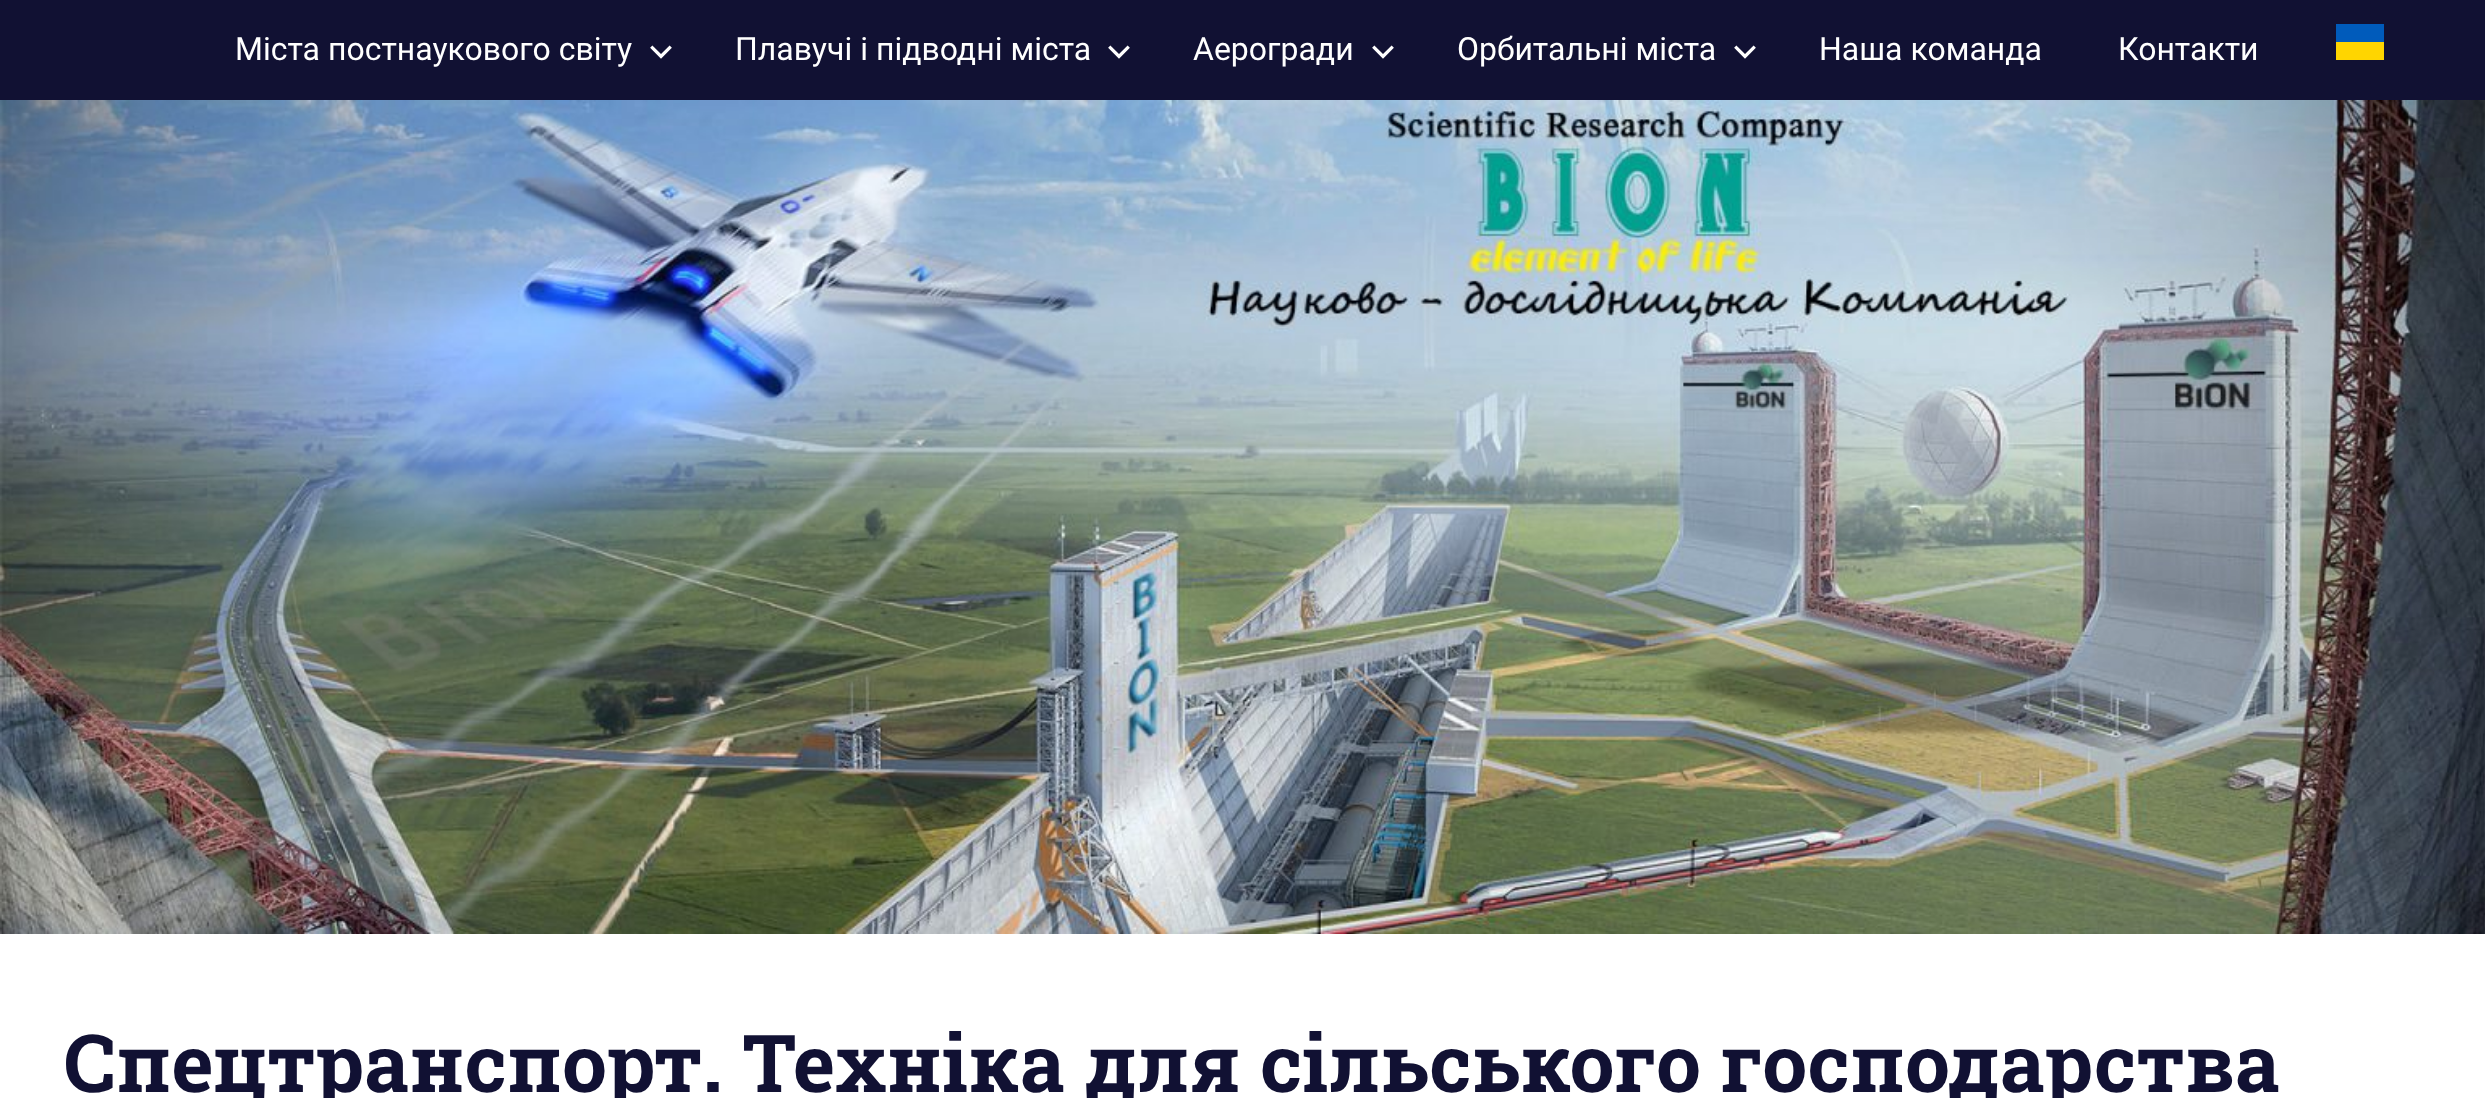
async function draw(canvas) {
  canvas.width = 2485
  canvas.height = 1098
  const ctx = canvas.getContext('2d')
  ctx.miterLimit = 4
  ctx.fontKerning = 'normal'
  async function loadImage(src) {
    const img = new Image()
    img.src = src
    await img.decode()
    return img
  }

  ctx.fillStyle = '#fff'
  ctx.fillRect(0, 0, 2485, 1098)
  ctx.fillStyle = '#113'
  ctx.fillRect(0, 0, 2485, 100)
  ctx.font = '32px Roboto'
  ctx.fillStyle = '#fff'
  ctx.fillText('Міста постнаукового світу', 235, 60)
  ctx.drawImage(await loadImage('image0.png'), 650, 45, 22, 14)
  ctx.fillText('Плавучі і підводні міста', 735, 60)
  ctx.drawImage(await loadImage('image0.png'), 1108, 45, 22, 14)
  ctx.fillText('Аерогради', 1193, 60)
  ctx.drawImage(await loadImage('image0.png'), 1372, 45, 22, 14)
  ctx.fillText('Орбитальні міста', 1457, 60)
  ctx.drawImage(await loadImage('image0.png'), 1734, 45, 22, 14)
  ctx.fillText('Наша команда', 1819, 60)
  ctx.fillText('Контакти', 2118, 60)
  ctx.fillStyle = '#005bbb'
  ctx.fillRect(2336, 24, 48, 18)
  ctx.fillStyle = '#ffd500'
  ctx.fillRect(2336, 42, 48, 18)
  ctx.drawImage(await loadImage('image1.png'), 0, 100, 2485, 834)
  ctx.font = 'bold 80px Roboto Slab'
  ctx.fillStyle = '#113'
  ctx.fillText('Спецтранспорт. Техніка для сільського господарства', 64, 1092)
}

draw(document.querySelector('canvas'))
